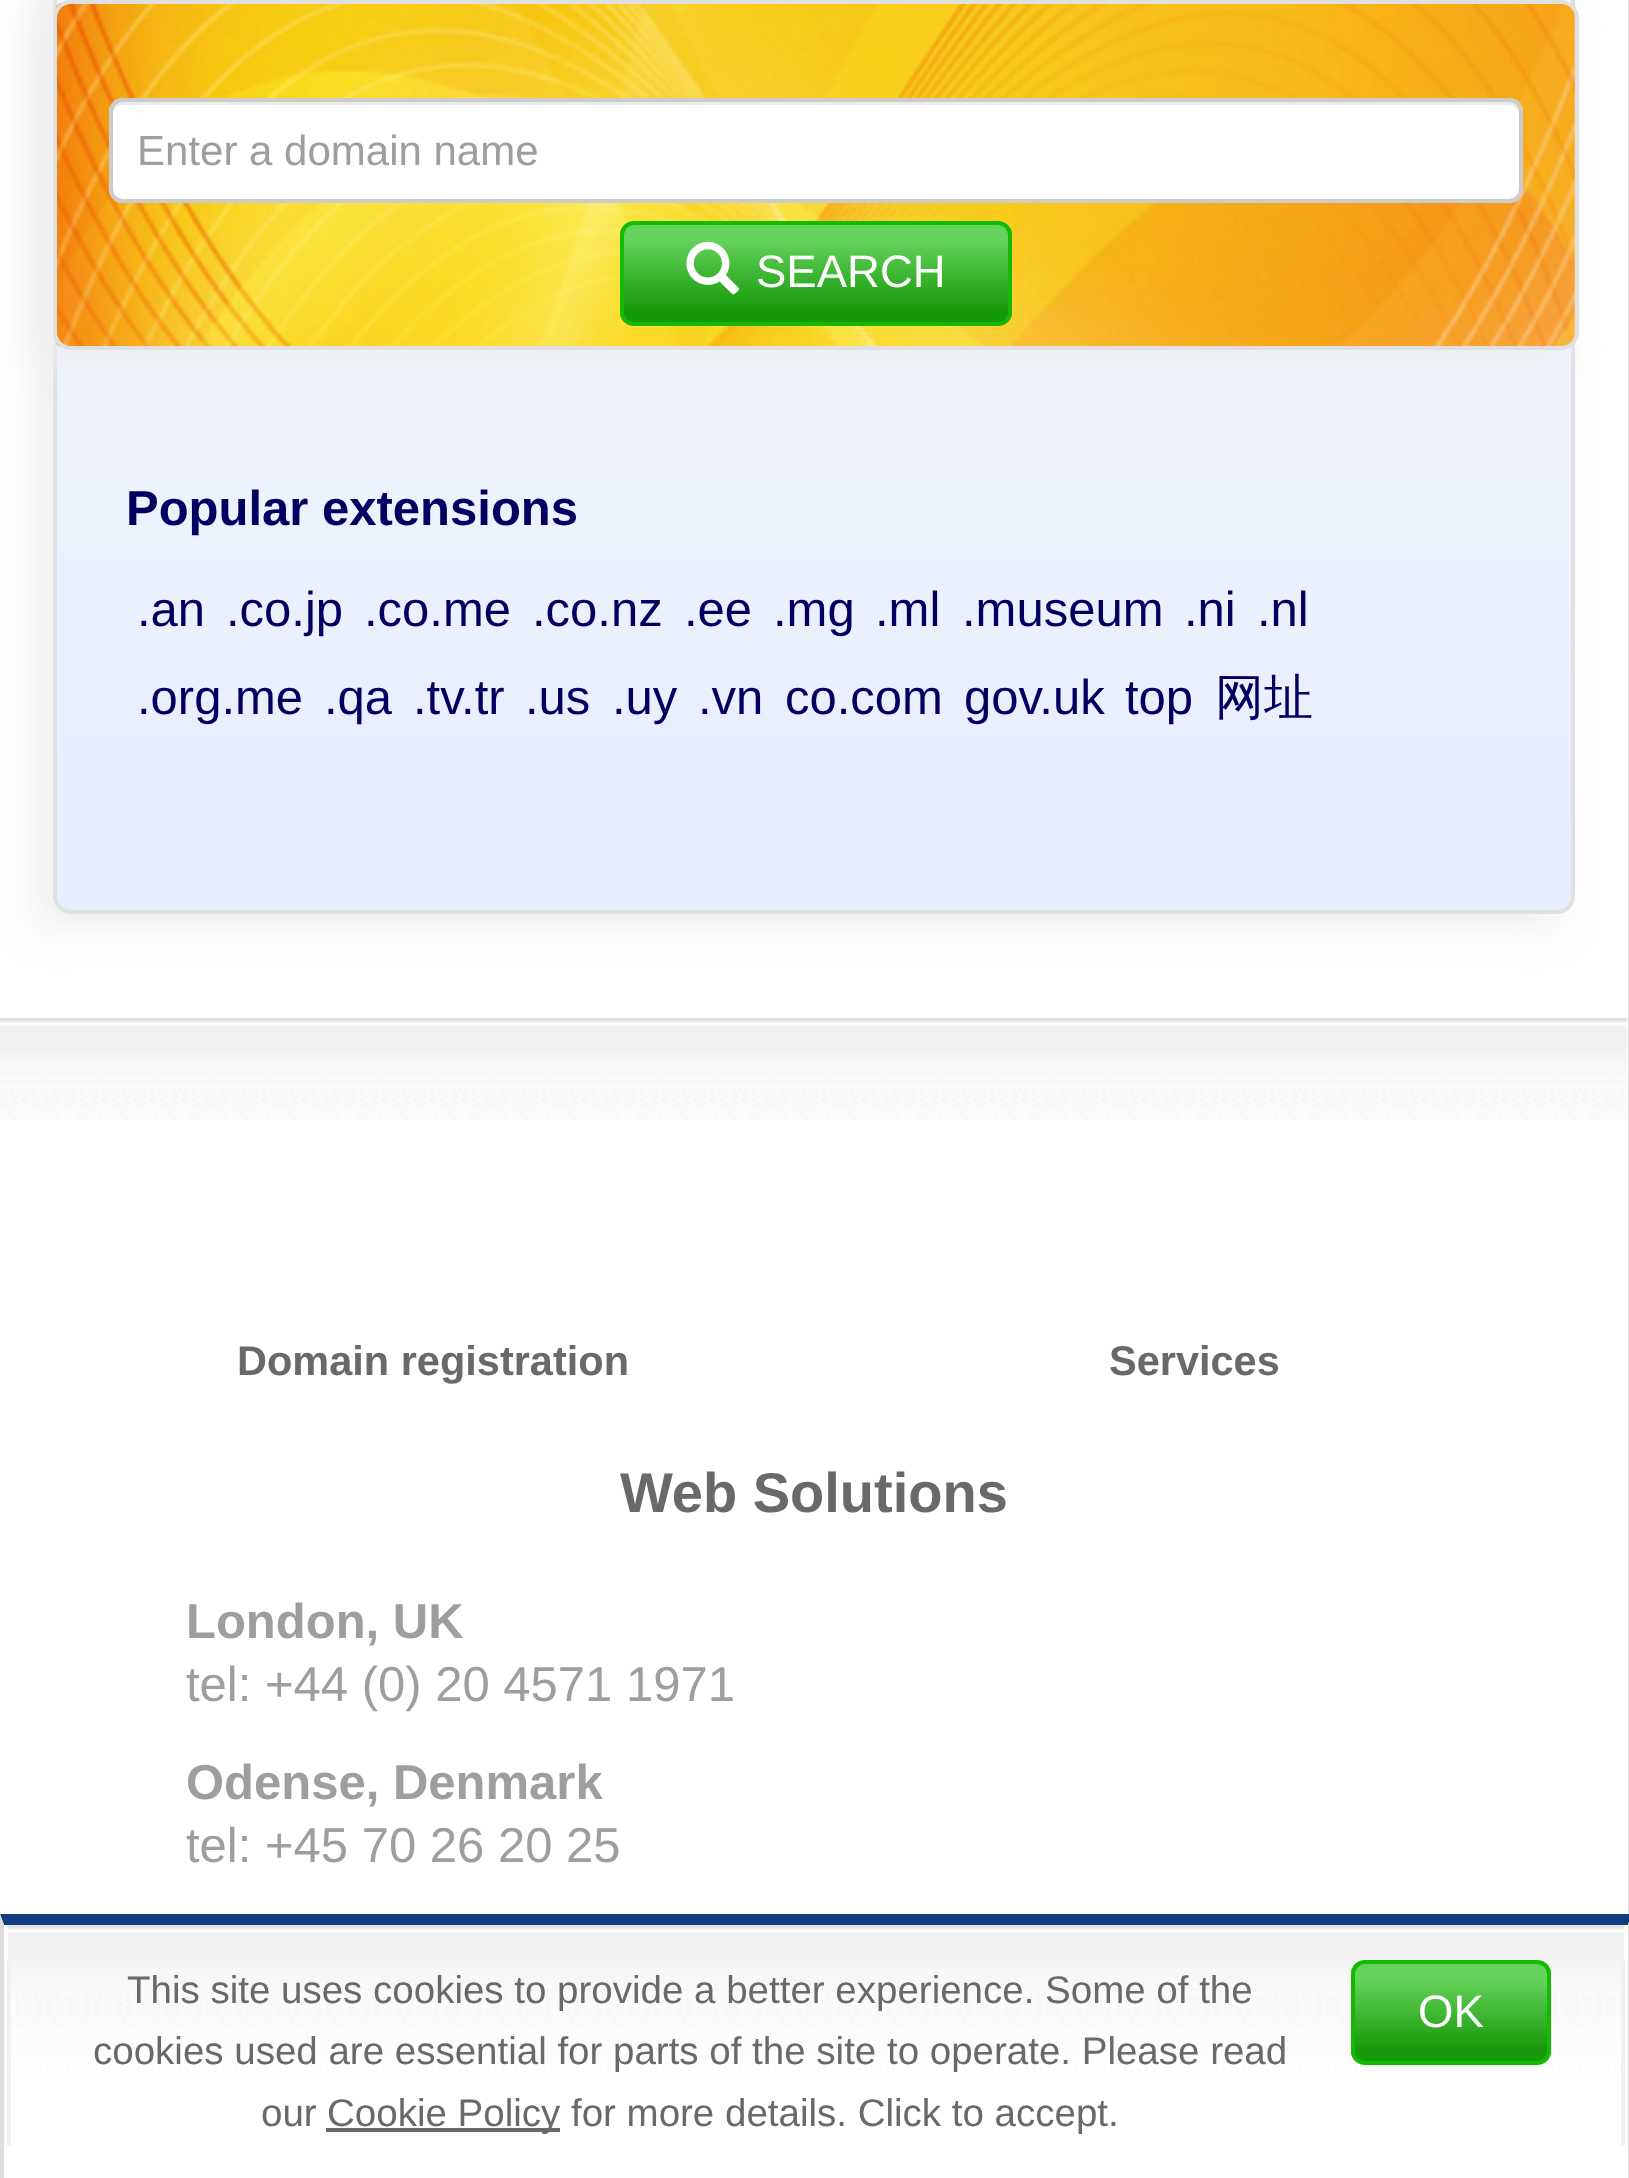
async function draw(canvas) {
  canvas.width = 1629
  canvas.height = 2178
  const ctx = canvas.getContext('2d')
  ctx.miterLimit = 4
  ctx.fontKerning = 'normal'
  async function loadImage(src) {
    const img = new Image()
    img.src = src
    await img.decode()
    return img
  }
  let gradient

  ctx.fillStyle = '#fff'
  ctx.fillRect(0, 0, 1629, 2178)
  ctx.fillStyle = '#dedede'
  ctx.fillRect(1628, 0, 1, 1925)
  ctx.fillStyle = '#efefef'
  ctx.filter = 'blur(17.5px)'
  ctx.beginPath()
  ctx.roundRect(35, -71, 1523, 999, 18)
  ctx.fill()
  ctx.filter = 'none'
  ctx.save()
  ctx.beginPath()
  ctx.roundRect(53, -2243, 1522, 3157, 18)
  ctx.clip()
  gradient = ctx.createLinearGradient(814, -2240, 814, 910)
  gradient.addColorStop(0, '#e6edfe')
  gradient.addColorStop(0.5, '#fff')
  gradient.addColorStop(1, '#e6edfe')
  ctx.fillStyle = gradient
  ctx.fillRect(53, 0, 1522, 910)
  ctx.restore()
  ctx.beginPath()
  ctx.roundRect(55, -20, 1518, 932, 16)
  ctx.strokeStyle = '#e0e0e0'
  ctx.lineWidth = 4
  ctx.stroke()
  ctx.filter = 'blur(17.5px)'
  ctx.beginPath()
  ctx.roundRect(35, 14, 1526, 350, 18)
  ctx.fill()
  ctx.filter = 'none'
  ctx.drawImage(await loadImage('image0.png'), 55, 3, 1521, 344)
  ctx.beginPath()
  ctx.roundRect(55, 2, 1522, 346, 16)
  ctx.stroke()
  ctx.fillStyle = '#fff'
  ctx.beginPath()
  ctx.roundRect(109, 98, 1414, 105, 14)
  ctx.fill()
  ctx.fillStyle = '#ececec'
  ctx.beginPath()
  ctx.moveTo(122, 105)
  ctx.lineTo(1508, 105)
  ctx.bezierCurveTo(1514, 105, 1519, 110, 1519, 116)
  ctx.bezierCurveTo(1519, 109, 1516, 102, 1508, 102)
  ctx.lineTo(123, 102)
  ctx.bezierCurveTo(115, 102, 112, 109, 112, 116)
  ctx.bezierCurveTo(112, 110, 117, 105, 122, 105)
  ctx.closePath()
  ctx.fill()
  ctx.beginPath()
  ctx.roundRect(111, 100, 1410, 101, 12)
  ctx.strokeStyle = '#ccc'
  ctx.stroke()
  ctx.font = '42px Liberation Sans'
  ctx.fillStyle = '#9e9e9e'
  ctx.fillText('Enter a domain name', 137, 165)
  ctx.save()
  ctx.beginPath()
  ctx.roundRect(620, 221, 392, 105, 14)
  ctx.clip()
  gradient = ctx.createLinearGradient(623, 224, 623, 322)
  gradient.addColorStop(0.16, '#65d25b')
  gradient.addColorStop(0.89, '#159809')
  ctx.fillStyle = gradient
  ctx.fillRect(620, 224, 392, 98)
  ctx.restore()
  ctx.beginPath()
  ctx.roundRect(622, 223, 388, 101, 12)
  ctx.strokeStyle = '#13ba00'
  ctx.stroke()
  ctx.drawImage(await loadImage('image1.png'), 686, 241, 53, 54)
  ctx.font = '45.5px Liberation Sans'
  ctx.fillStyle = '#fff'
  ctx.fillText('SEARCH', 756, 287)
  ctx.font = 'bold 49px Liberation Sans'
  ctx.fillStyle = '#000060'
  ctx.fillText('Popular extensions', 126, 525)
  ctx.font = '49px Liberation Sans'
  ctx.fillText('.an', 137, 626)
  ctx.fillText('.co.jp', 226, 626)
  ctx.fillText('.co.me', 364, 626)
  ctx.fillText('.co.nz', 532, 626)
  ctx.fillText('.ee', 684, 626)
  ctx.fillText('.mg', 773, 626)
  ctx.fillText('.ml', 875, 626)
  ctx.fillText('.museum', 962, 626)
  ctx.fillText('.ni', 1184, 626)
  ctx.fillText('.nl', 1257, 626)
  ctx.fillText('.org.me', 137, 714)
  ctx.fillText('.qa', 324, 714)
  ctx.fillText('.tv.tr', 413, 714)
  ctx.fillText('.us', 525, 714)
  ctx.fillText('.uy', 612, 714)
  ctx.fillText('.vn', 698, 714)
  ctx.fillText('co.com', 785, 714)
  ctx.fillText('gov.uk', 964, 714)
  ctx.fillText('top', 1125, 714)
  ctx.font = '500 49px WenQuanYi Zen Hei'
  ctx.fillText('网址', 1215, 714)
  ctx.drawImage(await loadImage('image2.png'), 0, 1018, 1628, 102)
  ctx.font = 'bold 41.5px Liberation Sans'
  ctx.fillStyle = '#696969'
  ctx.fillText('Domain registration', 237, 1375)
  ctx.fillText('Services', 1109, 1375)
  ctx.font = 'bold 56px Liberation Sans'
  ctx.fillText('Web Solutions', 620, 1512)
  ctx.font = 'bold 49px Liberation Sans'
  ctx.fillStyle = '#9e9e9e'
  ctx.fillText('London, UK', 186, 1638)
  ctx.font = '49px Liberation Sans'
  ctx.fillText('tel: +44 (0) 20 4571 1971', 186, 1701)
  ctx.font = 'bold 49px Liberation Sans'
  ctx.fillText('Odense, Denmark', 186, 1799)
  ctx.font = '49px Liberation Sans'
  ctx.fillText('tel: +45 70 26 20 25', 186, 1862)
  ctx.drawImage(await loadImage('image3.png'), 3, 1924, 1626, 254)
  ctx.fillStyle = '#113d80'
  ctx.beginPath()
  ctx.moveTo(0, 1914)
  ctx.lineTo(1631, 1914)
  ctx.lineTo(1628, 1925)
  ctx.lineTo(4, 1925)
  ctx.closePath()
  ctx.fill()
  ctx.fillStyle = '#dedede'
  ctx.beginPath()
  ctx.moveTo(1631, 1914)
  ctx.lineTo(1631, 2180)
  ctx.lineTo(1628, 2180)
  ctx.lineTo(1628, 1925)
  ctx.closePath()
  ctx.fill()
  ctx.beginPath()
  ctx.moveTo(0, 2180)
  ctx.lineTo(0, 1914)
  ctx.lineTo(4, 1925)
  ctx.lineTo(4, 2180)
  ctx.closePath()
  ctx.fill()
  ctx.fillStyle = '#fff'
  ctx.fillRect(1624, 1925, 4, 132)
  ctx.fillRect(4, 1925, 4, 146)
  ctx.fillStyle = '#f1f1f1'
  ctx.fillRect(1621, 1960, 4, 186)
  ctx.fillRect(7, 1960, 4, 186)
  ctx.font = '38.5px Liberation Sans'
  ctx.fillStyle = '#696969'
  ctx.fillText('This site uses cookies to provide a better experience. Some of the', 127, 2003)
  ctx.fillText('cookies used are essential for parts of the site to operate. Please read', 93, 2064)
  ctx.fillText('our', 261, 2126)
  ctx.fillRect(326, 2128, 234, 4)
  ctx.fillText('Cookie Policy for more details. Click to accept.', 327, 2126)
  ctx.save()
  ctx.beginPath()
  ctx.roundRect(1351, 1960, 200, 105, 14)
  ctx.clip()
  gradient = ctx.createLinearGradient(1355, 1964, 1355, 2062)
  gradient.addColorStop(0.16, '#65d25b')
  gradient.addColorStop(0.89, '#159809')
  ctx.fillStyle = gradient
  ctx.fillRect(1351, 1964, 200, 98)
  ctx.restore()
  ctx.beginPath()
  ctx.roundRect(1353, 1962, 196, 101, 12)
  ctx.stroke()
  ctx.font = '45.5px Liberation Sans'
  ctx.fillStyle = '#fff'
  ctx.fillText('OK', 1418, 2027)
}

draw(document.querySelector('canvas'))
